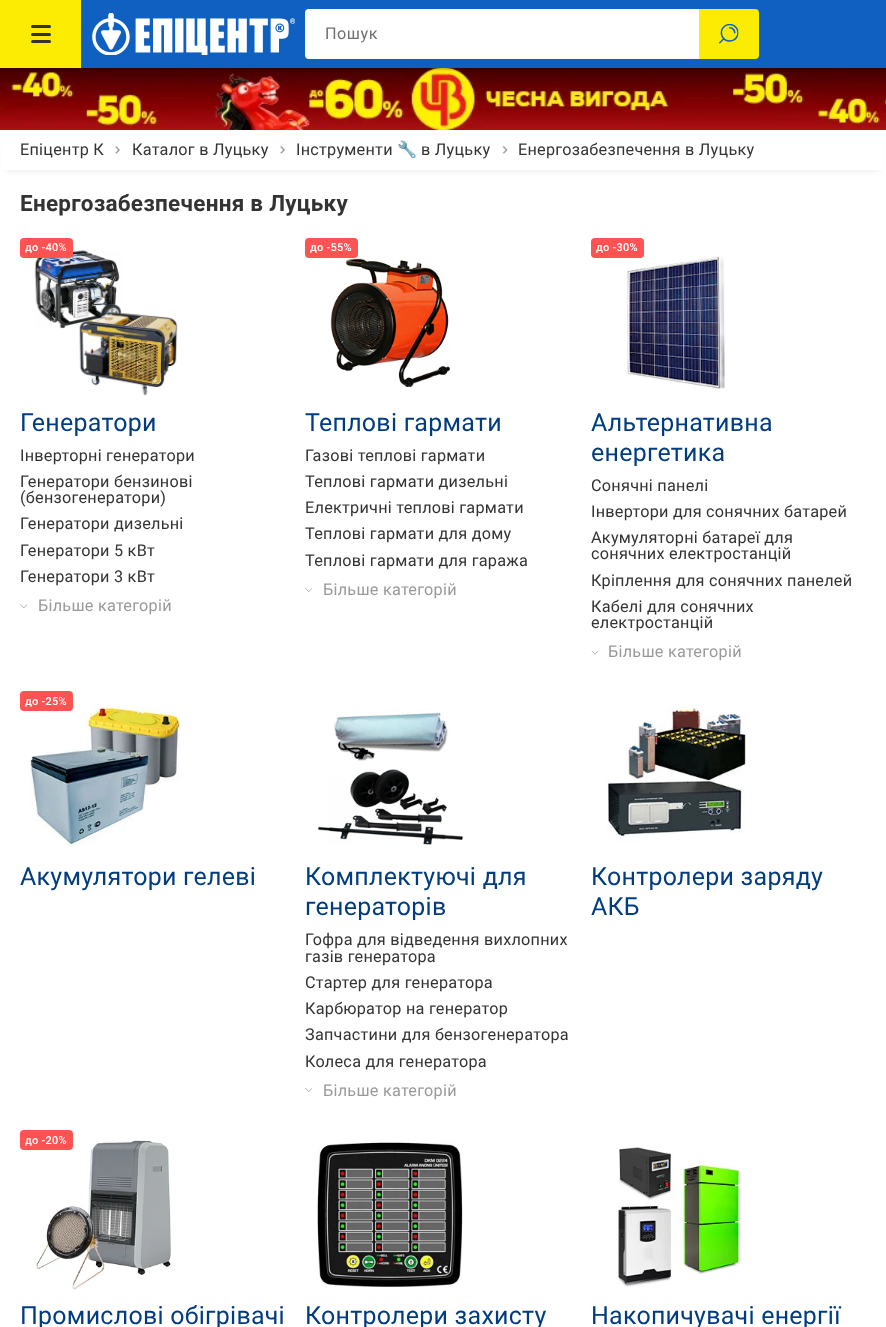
async function draw(canvas) {
  canvas.width = 886
  canvas.height = 1327
  const ctx = canvas.getContext('2d')
  ctx.miterLimit = 4
  ctx.fontKerning = 'normal'
  async function loadImage(src) {
    const img = new Image()
    img.src = src
    await img.decode()
    return img
  }

  ctx.fillStyle = '#fff'
  ctx.fillRect(0, 0, 886, 1327)
  ctx.fillStyle = '#1060c1'
  ctx.fillRect(81, 0, 805, 68)
  ctx.fillStyle = '#fcec03'
  ctx.fillRect(0, 0, 81, 68)
  ctx.fillStyle = '#333'
  ctx.beginPath()
  ctx.roundRect(31, 33, 20, 3, 1.5)
  ctx.fill()
  ctx.beginPath()
  ctx.roundRect(31, 25, 20, 3, 1.5)
  ctx.fill()
  ctx.beginPath()
  ctx.roundRect(31, 40, 20, 3, 1.5)
  ctx.fill()
  ctx.drawImage(await loadImage('image0.png'), 92, 13, 203, 42)
  ctx.fillStyle = '#fff'
  ctx.beginPath()
  ctx.roundRect(305, 9, 394, 50, [4, 0, 0, 4])
  ctx.fill()
  ctx.fillStyle = '#fcec03'
  ctx.beginPath()
  ctx.roundRect(699, 9, 60, 50, [0, 4, 4, 0])
  ctx.fill()
  ctx.drawImage(await loadImage('image2.png'), 0, 68, 886, 62)
  ctx.save()
  ctx.beginPath()
  ctx.moveTo(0, 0)
  ctx.lineTo(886, 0)
  ctx.lineTo(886, 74)
  ctx.lineTo(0, 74)
  ctx.closePath()
  ctx.moveTo(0, 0)
  ctx.lineTo(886, 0)
  ctx.lineTo(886, 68)
  ctx.lineTo(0, 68)
  ctx.closePath()
  ctx.clip('evenodd')
  ctx.fillStyle = '#00000033'
  ctx.filter = 'blur(1px)'
  ctx.beginPath()
  ctx.rect(0, 3, 886, 67)
  ctx.fill()
  ctx.filter = 'none'
  ctx.restore()
  ctx.letterSpacing = '0.5px'
  ctx.font = '16.25px Roboto'
  ctx.fillStyle = '#707070'
  ctx.fillText('Пошук', 325, 39)
  ctx.drawImage(await loadImage('image1.png'), 719, 24, 20, 20)
  ctx.fillStyle = '#0000001a'
  ctx.filter = 'blur(3px)'
  ctx.beginPath()
  ctx.rect(6, 143, 874, 27)
  ctx.fill()
  ctx.filter = 'none'
  ctx.fillStyle = '#fff'
  ctx.fillRect(2, 139, 882, 31)
  ctx.letterSpacing = '0.25px'
  ctx.fillStyle = '#333'
  ctx.fillText('Епіцентр К', 20, 155)
  ctx.drawImage(await loadImage('image3.png'), 114, 146, 6, 8)
  ctx.fillText('Каталог в Луцьку', 132, 155)
  ctx.drawImage(await loadImage('image3.png'), 279, 146, 6, 8)
  ctx.fillText('Інструменти', 296, 155)
  ctx.font = '16.25px Noto Color Emoji'
  ctx.fillText('🔧', 397, 155)
  ctx.font = '16.25px Roboto'
  ctx.fillText('в Луцьку', 421, 155)
  ctx.drawImage(await loadImage('image4.png'), 502, 146, 6, 8)
  ctx.fillText('Енергозабезпечення в Луцьку', 518, 155)
  ctx.font = 'bold 22.5px Roboto'
  ctx.fillText('Енергозабезпечення в Луцьку', 20, 211)
  ctx.drawImage(await loadImage('image5.png'), 34, 250, 144, 146)
  ctx.fillStyle = '#ff5252'
  ctx.beginPath()
  ctx.roundRect(20, 238, 53, 20, 4)
  ctx.fill()
  ctx.font = '500 11px Roboto'
  ctx.fillStyle = '#fff'
  ctx.fillText('до -40%', 25, 251)
  ctx.font = '25px Roboto'
  ctx.fillStyle = '#003c80'
  ctx.fillText('Генератори', 20, 431)
  ctx.font = '16.25px Roboto'
  ctx.fillStyle = '#333'
  ctx.fillText('Інверторні генератори', 20, 461)
  ctx.fillText('Генератори бензинові', 20, 487)
  ctx.fillText('(бензогенератори)', 20, 503)
  ctx.fillText('Генератори дизельні', 20, 529)
  ctx.fillText('Генератори 5 кВт', 20, 556)
  ctx.fillText('Генератори 3 кВт', 20, 582)
  ctx.drawImage(await loadImage('image6.png'), 20, 604, 8, 5)
  ctx.fillStyle = '#999'
  ctx.fillText('Більше категорій', 38, 611)
  ctx.fillStyle = '#ff5252'
  ctx.beginPath()
  ctx.roundRect(305, 238, 53, 20, 4)
  ctx.fill()
  ctx.font = '500 11px Roboto'
  ctx.fillStyle = '#fff'
  ctx.fillText('до -55%', 310, 251)
  ctx.drawImage(await loadImage('image7.png'), 330, 258, 120, 129)
  ctx.font = '25px Roboto'
  ctx.fillStyle = '#003c80'
  ctx.fillText('Теплові гармати', 305, 431)
  ctx.font = '16.25px Roboto'
  ctx.fillStyle = '#333'
  ctx.fillText('Газові теплові гармати', 305, 461)
  ctx.fillText('Теплові гармати дизельні', 305, 487)
  ctx.fillText('Електричні теплові гармати', 305, 513)
  ctx.fillText('Теплові гармати для дому', 305, 539)
  ctx.fillText('Теплові гармати для гаража', 305, 566)
  ctx.drawImage(await loadImage('image8.png'), 305, 588, 8, 4)
  ctx.fillStyle = '#999'
  ctx.fillText('Більше категорій', 323, 595)
  ctx.drawImage(await loadImage('image9.png'), 627, 256, 98, 133)
  ctx.fillStyle = '#ff5252'
  ctx.beginPath()
  ctx.roundRect(591, 238, 53, 20, 4)
  ctx.fill()
  ctx.font = '500 11px Roboto'
  ctx.fillStyle = '#fff'
  ctx.fillText('до -30%', 596, 251)
  ctx.font = '25px Roboto'
  ctx.fillStyle = '#003c80'
  ctx.fillText('Альтернативна', 591, 431)
  ctx.fillText('енергетика', 591, 461)
  ctx.font = '16.25px Roboto'
  ctx.fillStyle = '#333'
  ctx.fillText('Сонячні панелі', 591, 491)
  ctx.fillText('Інвертори для сонячних батарей', 591, 517)
  ctx.fillText('Акумуляторні батареї для', 591, 543)
  ctx.fillText('сонячних електростанцій', 591, 559)
  ctx.fillText('Кріплення для сонячних панелей', 591, 586)
  ctx.fillText('Кабелі для сонячних', 591, 612)
  ctx.fillText('електростанцій', 591, 628)
  ctx.drawImage(await loadImage('image10.png'), 591, 650, 8, 5)
  ctx.fillStyle = '#999'
  ctx.fillText('Більше категорій', 608, 657)
  ctx.drawImage(await loadImage('image11.png'), 30, 706, 150, 139)
  ctx.fillStyle = '#ff5252'
  ctx.beginPath()
  ctx.roundRect(20, 691, 53, 20, 4)
  ctx.fill()
  ctx.font = '500 11px Roboto'
  ctx.fillStyle = '#fff'
  ctx.fillText('до -25%', 25, 705)
  ctx.font = '25px Roboto'
  ctx.fillStyle = '#003c80'
  ctx.fillText('Акумулятори гелеві', 20, 885)
  ctx.drawImage(await loadImage('image12.png'), 318, 712, 145, 133)
  ctx.fillText('Комплектуючі для', 305, 885)
  ctx.fillText('генераторів', 305, 915)
  ctx.font = '16.25px Roboto'
  ctx.fillStyle = '#333'
  ctx.fillText('Гофра для відведення вихлопних', 305, 945)
  ctx.fillText('газів генератора', 305, 962)
  ctx.fillText('Стартер для генератора', 305, 988)
  ctx.fillText('Карбюратор на генератор', 305, 1014)
  ctx.fillText('Запчастини для бензогенератора', 305, 1040)
  ctx.fillText('Колеса для генератора', 305, 1067)
  ctx.drawImage(await loadImage('image8.png'), 305, 1088, 8, 4)
  ctx.fillStyle = '#999'
  ctx.fillText('Більше категорій', 323, 1096)
  ctx.drawImage(await loadImage('image13.png'), 607, 707, 139, 130)
  ctx.font = '25px Roboto'
  ctx.fillStyle = '#003c80'
  ctx.fillText('Контролери заряду', 591, 885)
  ctx.fillText('АКБ', 591, 915)
  ctx.drawImage(await loadImage('image14.png'), 35, 1140, 137, 150)
  ctx.fillStyle = '#ff5252'
  ctx.beginPath()
  ctx.roundRect(20, 1130, 53, 20, 4)
  ctx.fill()
  ctx.font = '500 11px Roboto'
  ctx.fillStyle = '#fff'
  ctx.fillText('до -20%', 25, 1144)
  ctx.font = '25px Roboto'
  ctx.fillStyle = '#003c80'
  ctx.fillText('Промислові обігрівачі', 20, 1324)
  ctx.drawImage(await loadImage('image15.png'), 317, 1140, 146, 148)
  ctx.fillText('Контролери захисту', 305, 1324)
  ctx.drawImage(await loadImage('image16.png'), 618, 1147, 122, 140)
  ctx.fillText('Накопичувачі енергії', 591, 1324)
}

draw(document.querySelector('canvas'))
